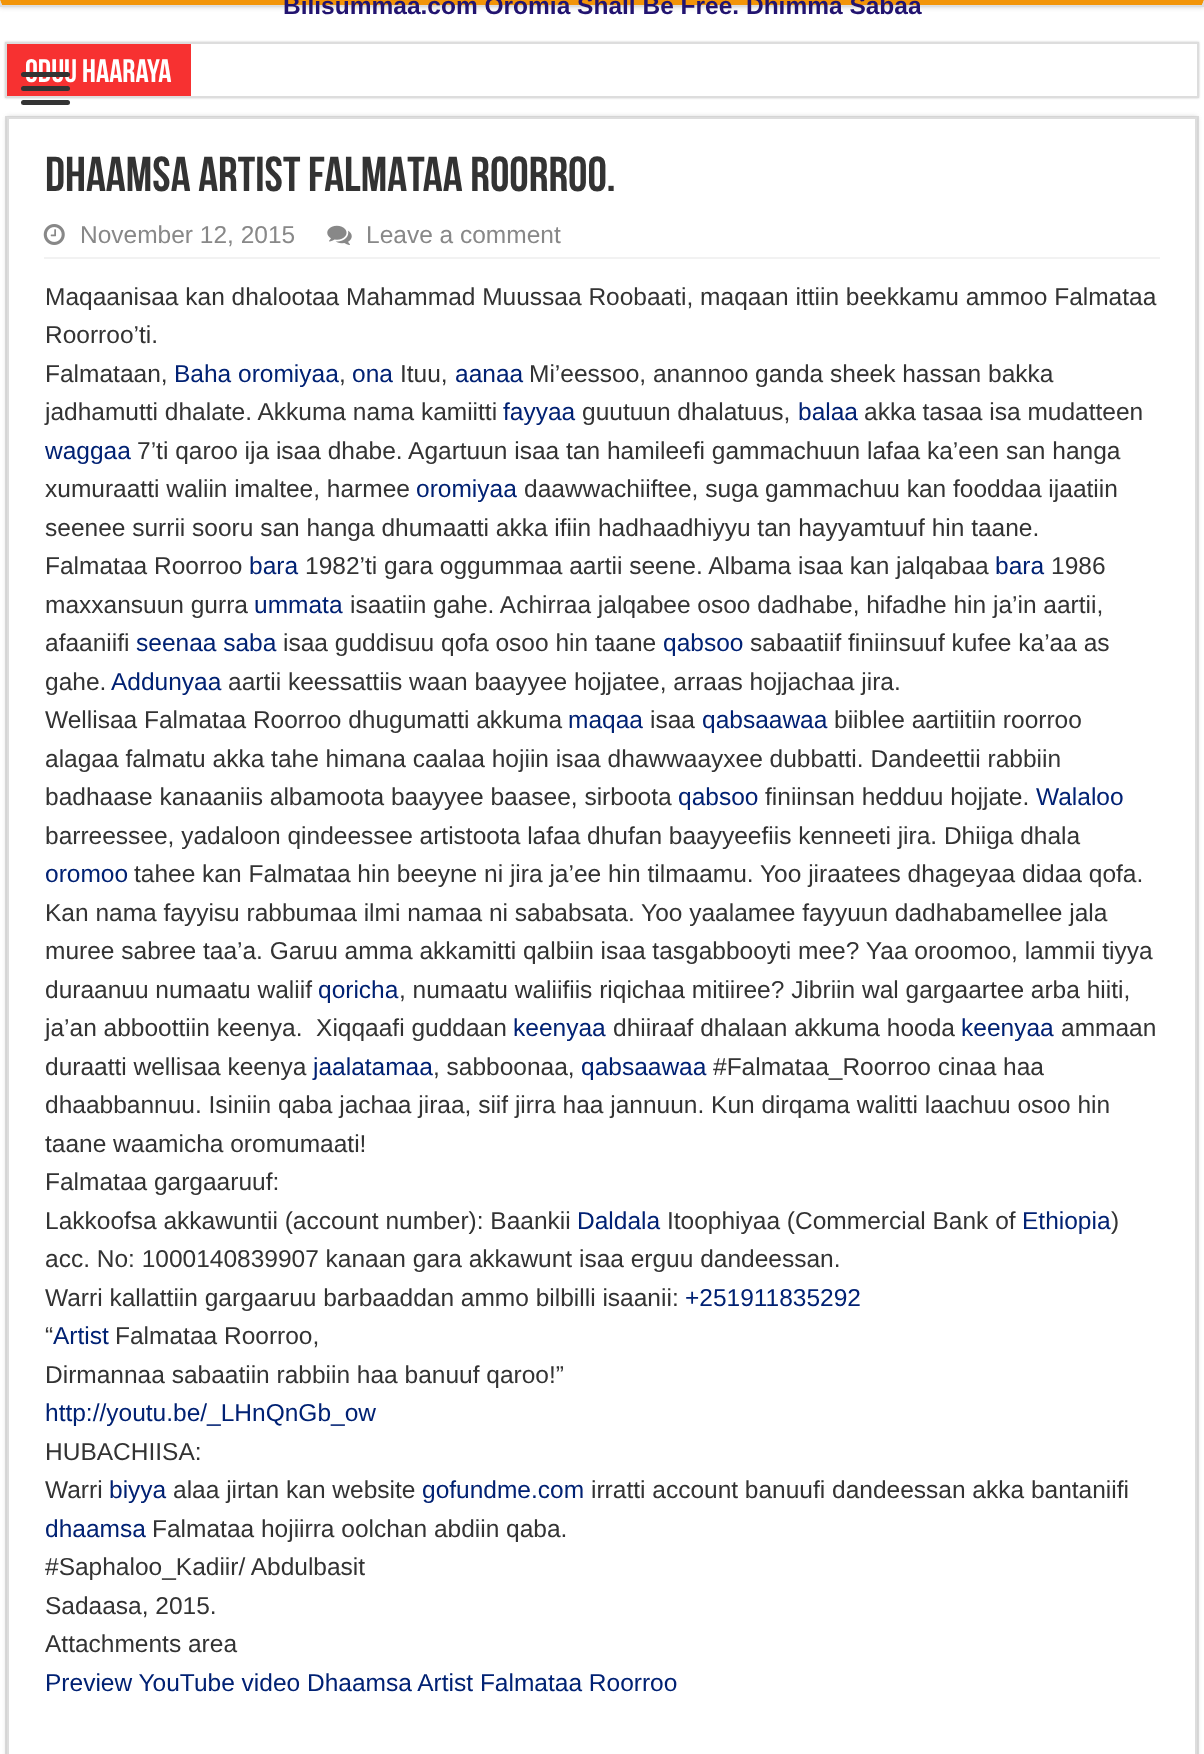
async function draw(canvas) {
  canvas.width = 1204
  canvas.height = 1754
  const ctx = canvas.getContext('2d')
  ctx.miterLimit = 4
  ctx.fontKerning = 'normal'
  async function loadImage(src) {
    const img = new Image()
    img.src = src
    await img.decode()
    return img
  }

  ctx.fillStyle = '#fff'
  ctx.fillRect(0, 0, 1204, 1754)
  ctx.fillStyle = '#cacaca'
  ctx.filter = 'blur(2.5px)'
  ctx.beginPath()
  ctx.rect(0, 0, 1204, 7)
  ctx.fill()
  ctx.filter = 'none'
  ctx.fillStyle = '#f29408'
  ctx.beginPath()
  ctx.moveTo(0, 0)
  ctx.lineTo(1204, 0)
  ctx.lineTo(1202, 5)
  ctx.lineTo(2, 5)
  ctx.closePath()
  ctx.fill()
  ctx.fillStyle = '#ddd'
  ctx.beginPath()
  ctx.moveTo(1204, 0)
  ctx.lineTo(1204, 7)
  ctx.lineTo(1202, 5)
  ctx.closePath()
  ctx.fill()
  ctx.fillRect(0, 5, 1204, 2)
  ctx.beginPath()
  ctx.moveTo(0, 7)
  ctx.lineTo(0, 0)
  ctx.lineTo(2, 5)
  ctx.closePath()
  ctx.fill()
  ctx.font = 'bold 24.5px Liberation Sans'
  ctx.fillStyle = '#221470'
  ctx.fillText('Bilisummaa.com Oromia Shall Be Free. Dhimma Sabaa', 283, 14)
  ctx.fillStyle = '#cacaca'
  ctx.filter = 'blur(1px)'
  ctx.beginPath()
  ctx.rect(5, 42, 1194, 56)
  ctx.fill()
  ctx.filter = 'none'
  ctx.fillStyle = '#fff'
  ctx.fillRect(191, 44, 1006, 52)
  ctx.strokeStyle = '#ddd'
  ctx.lineWidth = 2
  ctx.strokeRect(6, 43, 1192, 54)
  ctx.fillStyle = '#f73131'
  ctx.fillRect(7, 44, 184, 52)
  ctx.font = 'bold 32.5px Bebas Neue'
  ctx.fillStyle = '#fff'
  ctx.fillText('Oduu Haaraya', 25, 82)
  ctx.fillStyle = '#333'
  ctx.beginPath()
  ctx.roundRect(21, 72, 49, 5, 2.5)
  ctx.fill()
  ctx.beginPath()
  ctx.roundRect(21, 86, 49, 5, 2.5)
  ctx.fill()
  ctx.beginPath()
  ctx.roundRect(21, 100, 49, 5, 2.5)
  ctx.fill()
  ctx.strokeRect(6, 117, 1192, 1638)
  ctx.save()
  ctx.beginPath()
  ctx.moveTo(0, 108)
  ctx.lineTo(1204, 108)
  ctx.lineTo(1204, 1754)
  ctx.lineTo(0, 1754)
  ctx.closePath()
  ctx.moveTo(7, 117)
  ctx.lineTo(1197, 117)
  ctx.lineTo(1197, 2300)
  ctx.lineTo(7, 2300)
  ctx.closePath()
  ctx.clip('evenodd')
  ctx.fillStyle = '#cacaca'
  ctx.filter = 'blur(2.5px)'
  ctx.beginPath()
  ctx.rect(7, 117, 1190, 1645)
  ctx.fill()
  ctx.filter = 'none'
  ctx.restore()
  ctx.fillStyle = '#ddd'
  ctx.fillRect(7, 117, 1190, 2)
  ctx.beginPath()
  ctx.moveTo(1197, 117)
  ctx.lineTo(1197, 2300)
  ctx.lineTo(1195, 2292)
  ctx.lineTo(1195, 119)
  ctx.closePath()
  ctx.fill()
  ctx.beginPath()
  ctx.moveTo(7, 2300)
  ctx.lineTo(7, 117)
  ctx.lineTo(9, 119)
  ctx.lineTo(9, 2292)
  ctx.closePath()
  ctx.fill()
  ctx.font = 'bold 49px Bebas Neue'
  ctx.fillStyle = '#333'
  ctx.fillText('DHAAMSA ARTIST FALMATAA ROORROO.', 45, 191)
  ctx.fillStyle = '#f2f2f2'
  ctx.fillRect(44, 257, 1116, 2)
  ctx.drawImage(await loadImage('image0.png'), 43, 224, 22, 21)
  ctx.font = '24.5px Liberation Sans'
  ctx.fillStyle = '#888'
  ctx.fillText('November 12, 2015', 80, 243)
  ctx.drawImage(await loadImage('image1.png'), 327, 225, 25, 20)
  ctx.fillText('Leave a comment', 366, 243)
  ctx.fillStyle = '#333'
  ctx.fillText('Maqaanisaa kan dhalootaa Mahammad Muussaa Roobaati, maqaan ittiin beekkamu ammoo Falmataa', 45, 305)
  ctx.fillText('Roorroo’ti.', 45, 343)
  ctx.fillText('Falmataan,', 45, 382)
  ctx.fillStyle = '#002173'
  ctx.fillText('Baha oromiyaa', 174, 382)
  ctx.fillStyle = '#333'
  ctx.fillText(',', 339, 382)
  ctx.fillStyle = '#002173'
  ctx.fillText('ona', 352, 382)
  ctx.fillStyle = '#333'
  ctx.fillText('Ituu,', 400, 382)
  ctx.fillStyle = '#002173'
  ctx.fillText('aanaa', 455, 382)
  ctx.fillStyle = '#333'
  ctx.fillText('Mi’eessoo, anannoo ganda sheek hassan bakka', 529, 382)
  ctx.fillText('jadhamutti dhalate. Akkuma nama kamiitti', 45, 420)
  ctx.fillStyle = '#002173'
  ctx.fillText('fayyaa', 503, 420)
  ctx.fillStyle = '#333'
  ctx.fillText('guutuun dhalatuus,', 582, 420)
  ctx.fillStyle = '#002173'
  ctx.fillText('balaa', 798, 420)
  ctx.fillStyle = '#333'
  ctx.fillText('akka tasaa isa mudatteen', 864, 420)
  ctx.fillStyle = '#002173'
  ctx.fillText('waggaa', 45, 459)
  ctx.fillStyle = '#333'
  ctx.fillText('7’ti qaroo ija isaa dhabe. Agartuun isaa tan hamileefi gammachuun lafaa ka’een san hanga', 137, 459)
  ctx.fillText('xumuraatti waliin imaltee, harmee', 45, 497)
  ctx.fillStyle = '#002173'
  ctx.fillText('oromiyaa', 416, 497)
  ctx.fillStyle = '#333'
  ctx.fillText('daawwachiiftee, suga gammachuu kan fooddaa ijaatiin', 524, 497)
  ctx.fillText('seenee surrii sooru san hanga dhumaatti akka ifiin hadhaadhiyyu tan hayyamtuuf hin taane.', 45, 536)
  ctx.fillText('Falmataa Roorroo', 45, 574)
  ctx.fillStyle = '#002173'
  ctx.fillText('bara', 249, 574)
  ctx.fillStyle = '#333'
  ctx.fillText('1982’ti gara oggummaa aartii seene. Albama isaa kan jalqabaa', 305, 574)
  ctx.fillStyle = '#002173'
  ctx.fillText('bara', 995, 574)
  ctx.fillStyle = '#333'
  ctx.fillText('1986', 1051, 574)
  ctx.fillText('maxxansuun gurra', 45, 613)
  ctx.fillStyle = '#002173'
  ctx.fillText('ummata', 254, 613)
  ctx.fillStyle = '#333'
  ctx.fillText('isaatiin gahe. Achirraa jalqabee osoo dadhabe, hifadhe hin ja’in aartii,', 350, 613)
  ctx.fillText('afaaniifi', 45, 651)
  ctx.fillStyle = '#002173'
  ctx.fillText('seenaa saba', 136, 651)
  ctx.fillStyle = '#333'
  ctx.fillText('isaa guddisuu qofa osoo hin taane', 283, 651)
  ctx.fillStyle = '#002173'
  ctx.fillText('qabsoo', 663, 651)
  ctx.fillStyle = '#333'
  ctx.fillText('sabaatiif finiinsuuf kufee ka’aa as', 750, 651)
  ctx.fillText('gahe.', 45, 690)
  ctx.fillStyle = '#002173'
  ctx.fillText('Addunyaa', 111, 690)
  ctx.fillStyle = '#333'
  ctx.fillText('aartii keessattiis waan baayyee hojjatee, arraas hojjachaa jira.', 228, 690)
  ctx.fillText('Wellisaa Falmataa Roorroo dhugumatti akkuma', 45, 728)
  ctx.fillStyle = '#002173'
  ctx.fillText('maqaa', 568, 728)
  ctx.fillStyle = '#333'
  ctx.fillText('isaa', 650, 728)
  ctx.fillStyle = '#002173'
  ctx.fillText('qabsaawaa', 702, 728)
  ctx.fillStyle = '#333'
  ctx.fillText('biiblee aartiitiin roorroo', 834, 728)
  ctx.fillText('alagaa falmatu akka tahe himana caalaa hojiin isaa dhawwaayxee dubbatti. Dandeettii rabbiin', 45, 767)
  ctx.fillText('badhaase kanaaniis albamoota baayyee baasee, sirboota', 45, 805)
  ctx.fillStyle = '#002173'
  ctx.fillText('qabsoo', 678, 805)
  ctx.fillStyle = '#333'
  ctx.fillText('finiinsan hedduu hojjate.', 765, 805)
  ctx.fillStyle = '#002173'
  ctx.fillText('Walaloo', 1036, 805)
  ctx.fillStyle = '#333'
  ctx.fillText('barreessee, yadaloon qindeessee artistoota lafaa dhufan baayyeefiis kenneeti jira. Dhiiga dhala', 45, 844)
  ctx.fillStyle = '#002173'
  ctx.fillText('oromoo', 45, 882)
  ctx.fillStyle = '#333'
  ctx.fillText('tahee kan Falmataa hin beeyne ni jira ja’ee hin tilmaamu. Yoo jiraatees dhageyaa didaa qofa.', 134, 882)
  ctx.fillText('Kan nama fayyisu rabbumaa ilmi namaa ni sababsata. Yoo yaalamee fayyuun dadhabamellee jala', 45, 921)
  ctx.fillText('muree sabree taa’a. Garuu amma akkamitti qalbiin isaa tasgabbooyti mee? Yaa oroomoo, lammii tiyya', 45, 959)
  ctx.fillText('duraanuu numaatu waliif', 45, 998)
  ctx.fillStyle = '#002173'
  ctx.fillText('qoricha', 318, 998)
  ctx.fillStyle = '#333'
  ctx.fillText(', numaatu waliifiis riqichaa mitiiree? Jibriin wal gargaartee arba hiiti,', 399, 998)
  ctx.fillText('ja’an abboottiin keenya.  Xiqqaafi guddaan', 45, 1036)
  ctx.fillStyle = '#002173'
  ctx.fillText('keenyaa', 513, 1036)
  ctx.fillStyle = '#333'
  ctx.fillText('dhiiraaf dhalaan akkuma hooda', 613, 1036)
  ctx.fillStyle = '#002173'
  ctx.fillText('keenyaa', 961, 1036)
  ctx.fillStyle = '#333'
  ctx.fillText('ammaan', 1061, 1036)
  ctx.fillText('duraatti wellisaa keenya', 45, 1075)
  ctx.fillStyle = '#002173'
  ctx.fillText('jaalatamaa', 313, 1075)
  ctx.fillStyle = '#333'
  ctx.fillText(', sabboonaa,', 433, 1075)
  ctx.fillStyle = '#002173'
  ctx.fillText('qabsaawaa', 581, 1075)
  ctx.fillStyle = '#333'
  ctx.fillText('#Falmataa_Roorroo cinaa haa', 713, 1075)
  ctx.fillText('dhaabbannuu. Isiniin qaba jachaa jiraa, siif jirra haa jannuun. Kun dirqama walitti laachuu osoo hin', 45, 1113)
  ctx.fillText('taane waamicha oromumaati!', 45, 1152)
  ctx.fillText('Falmataa gargaaruuf:', 45, 1190)
  ctx.fillText('Lakkoofsa akkawuntii (account number): Baankii', 45, 1229)
  ctx.fillStyle = '#002173'
  ctx.fillText('Daldala', 577, 1229)
  ctx.fillStyle = '#333'
  ctx.fillText('Itoophiyaa (Commercial Bank of', 667, 1229)
  ctx.fillStyle = '#002173'
  ctx.fillText('Ethiopia', 1022, 1229)
  ctx.fillStyle = '#333'
  ctx.fillText(')', 1111, 1229)
  ctx.fillText('acc. No: 1000140839907 kanaan gara akkawunt isaa erguu dandeessan.', 45, 1267)
  ctx.fillText('Warri kallattiin gargaaruu barbaaddan ammo bilbilli isaanii:', 45, 1306)
  ctx.fillStyle = '#002173'
  ctx.fillText('+251911835292', 685, 1306)
  ctx.fillStyle = '#333'
  ctx.fillText('“', 45, 1344)
  ctx.fillStyle = '#002173'
  ctx.fillText('Artist', 53, 1344)
  ctx.fillStyle = '#333'
  ctx.fillText('Falmataa Roorroo,', 115, 1344)
  ctx.fillText('Dirmannaa sabaatiin rabbiin haa banuuf qaroo!”', 45, 1383)
  ctx.fillStyle = '#002173'
  ctx.fillText('http://youtu.be/_LHnQnGb_ow', 45, 1421)
  ctx.fillStyle = '#333'
  ctx.fillText('HUBACHIISA:', 45, 1460)
  ctx.fillText('Warri', 45, 1498)
  ctx.fillStyle = '#002173'
  ctx.fillText('biyya', 109, 1498)
  ctx.fillStyle = '#333'
  ctx.fillText('alaa jirtan kan website', 173, 1498)
  ctx.fillStyle = '#002173'
  ctx.fillText('gofundme.com', 422, 1498)
  ctx.fillStyle = '#333'
  ctx.fillText('irratti account banuufi dandeessan akka bantaniifi', 591, 1498)
  ctx.fillStyle = '#002173'
  ctx.fillText('dhaamsa', 45, 1537)
  ctx.fillStyle = '#333'
  ctx.fillText('Falmataa hojiirra oolchan abdiin qaba.', 152, 1537)
  ctx.fillText('#Saphaloo_Kadiir/ Abdulbasit', 45, 1575)
  ctx.fillText('Sadaasa, 2015.', 45, 1614)
  ctx.fillText('Attachments area', 45, 1652)
  ctx.fillStyle = '#002173'
  ctx.fillText('Preview YouTube video Dhaamsa Artist Falmataa Roorroo', 45, 1691)
}

draw(document.querySelector('canvas'))
